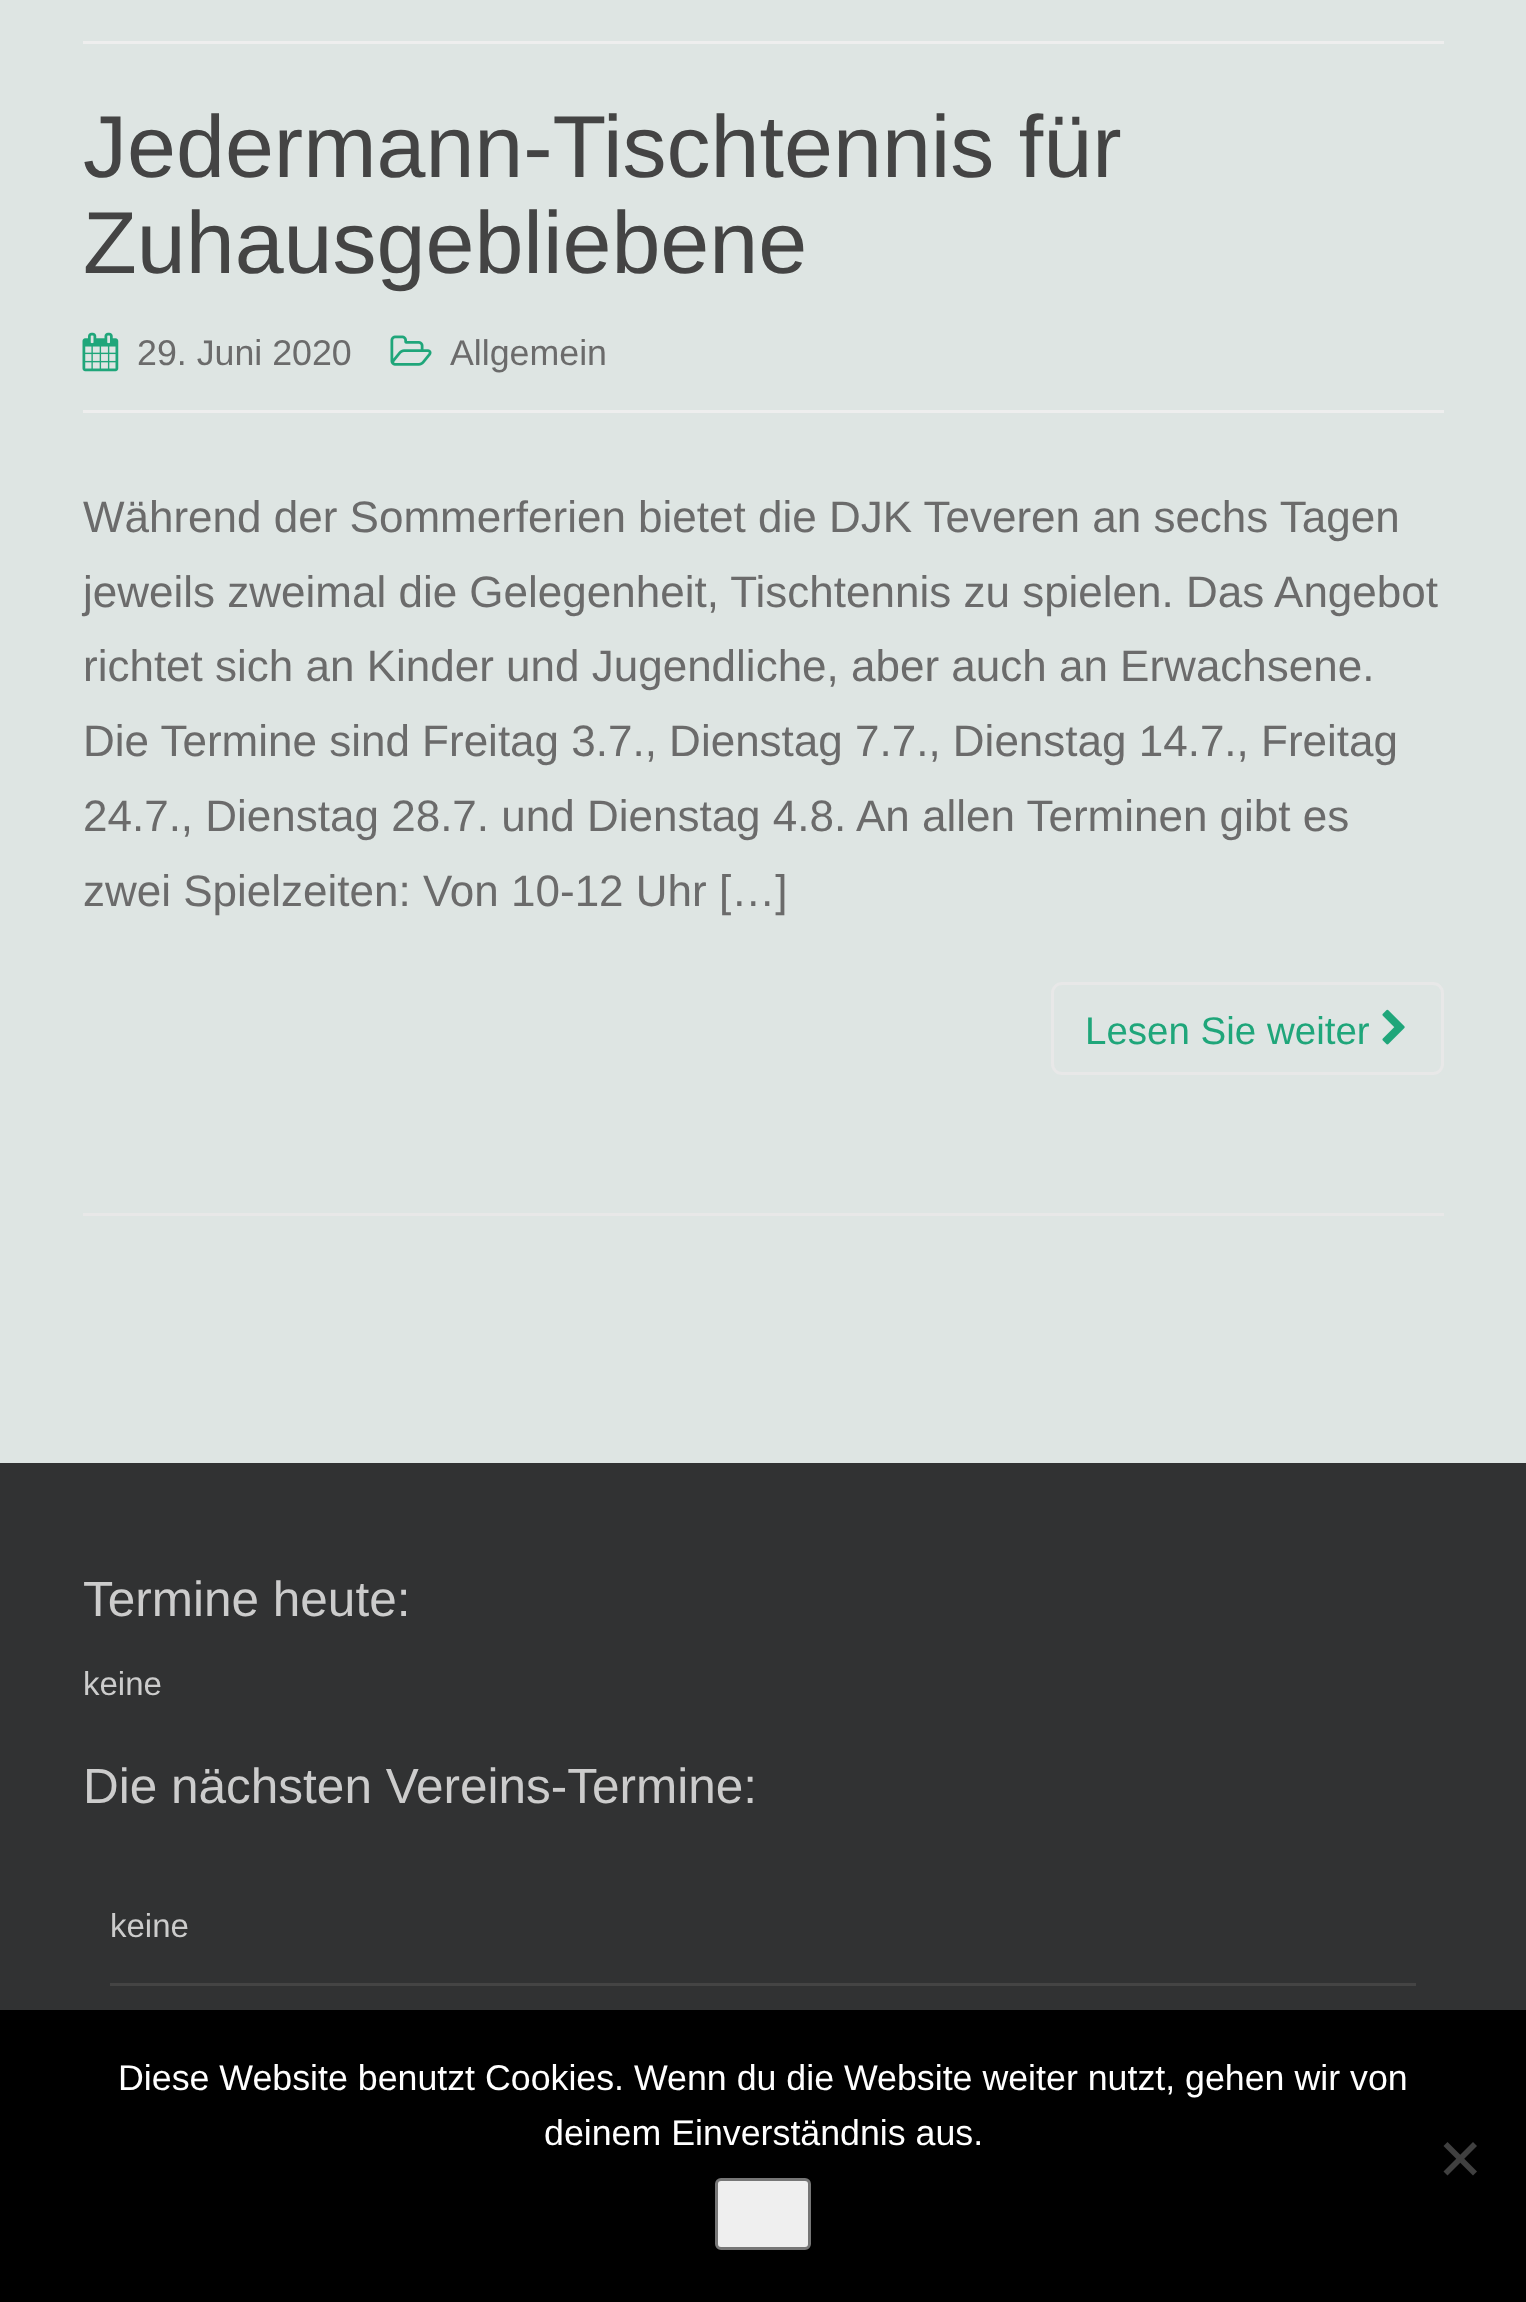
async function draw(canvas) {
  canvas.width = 1526
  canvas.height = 2302
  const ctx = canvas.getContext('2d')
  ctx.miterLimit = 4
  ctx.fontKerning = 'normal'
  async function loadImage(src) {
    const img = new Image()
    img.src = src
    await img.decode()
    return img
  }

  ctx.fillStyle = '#dee5e3'
  ctx.fillRect(0, 0, 1526, 2302)
  ctx.fillStyle = '#eee'
  ctx.fillRect(83, 41, 1361, 3)
  ctx.fillRect(83, 410, 1361, 3)
  ctx.font = '88px Liberation Sans'
  ctx.fillStyle = '#444'
  ctx.fillText('Jedermann-Tischtennis für', 83, 177)
  ctx.fillText('Zuhausgebliebene', 83, 273)
  ctx.drawImage(await loadImage('image0.png'), 82, 332, 37, 40)
  ctx.font = '35.75px Liberation Sans'
  ctx.fillStyle = '#6b6b6b'
  ctx.fillText('29. Juni 2020', 137, 365)
  ctx.drawImage(await loadImage('image1.png'), 390, 335, 42, 31)
  ctx.fillText('Allgemein', 450, 365)
  ctx.font = '44px Liberation Sans'
  ctx.fillText('Während der Sommerferien bietet die DJK Teveren an sechs Tagen', 83, 532)
  ctx.fillText('jeweils zweimal die Gelegenheit, Tischtennis zu spielen. Das Angebot', 83, 607)
  ctx.fillText('richtet sich an Kinder und Jugendliche, aber auch an Erwachsene.', 83, 681)
  ctx.fillText('Die Termine sind Freitag 3.7., Dienstag 7.7., Dienstag 14.7., Freitag', 83, 756)
  ctx.fillText('24.7., Dienstag 28.7. und Dienstag 4.8. An allen Terminen gibt es', 83, 831)
  ctx.fillText('zwei Spielzeiten: Von 10-12 Uhr […]', 83, 906)
  ctx.beginPath()
  ctx.roundRect(1052.5, 983.5, 390, 90, 9.5)
  ctx.strokeStyle = '#e8e8e8'
  ctx.lineWidth = 3
  ctx.stroke()
  ctx.font = '38.5px Liberation Sans'
  ctx.fillStyle = '#1fa67a'
  ctx.fillText('Lesen Sie weiter', 1085, 1044)
  ctx.drawImage(await loadImage('image2.png'), 1382, 1009, 23, 36)
  ctx.fillStyle = '#e8e8e8'
  ctx.fillRect(83, 1213, 1361, 3)
  ctx.fillStyle = '#313233'
  ctx.fillRect(0, 1463, 1526, 547)
  ctx.font = '49.5px Liberation Sans'
  ctx.fillStyle = '#ccc'
  ctx.fillText('Termine heute:', 83, 1616)
  ctx.font = '33px Liberation Sans'
  ctx.fillText('keine', 83, 1695)
  ctx.font = '49.5px Liberation Sans'
  ctx.fillText('Die nächsten Vereins-Termine:', 83, 1803)
  ctx.fillStyle = '#444'
  ctx.fillRect(110, 1983, 1306, 3)
  ctx.font = '33px Liberation Sans'
  ctx.fillStyle = '#ccc'
  ctx.fillText('keine', 110, 1937)
  ctx.fillStyle = '#000'
  ctx.fillRect(0, 2010, 1526, 292)
  ctx.font = '35.75px Liberation Sans'
  ctx.fillStyle = '#fff'
  ctx.fillText('Diese Website benutzt Cookies. Wenn du die Website weiter nutzt, gehen wir von', 118, 2090)
  ctx.fillText('deinem Einverständnis aus.', 544, 2145)
  ctx.fillStyle = '#404040'
  ctx.beginPath()
  ctx.moveTo(1473, 2142)
  ctx.lineTo(1477, 2146)
  ctx.lineTo(1447.5, 2175.5)
  ctx.lineTo(1443.5, 2171.5)
  ctx.closePath()
  ctx.fill()
  ctx.beginPath()
  ctx.moveTo(1443.5, 2146)
  ctx.lineTo(1447.5, 2142)
  ctx.lineTo(1477, 2171.5)
  ctx.lineTo(1473, 2175.5)
  ctx.closePath()
  ctx.fill()
  ctx.fillStyle = '#efefef'
  ctx.beginPath()
  ctx.roundRect(716.5, 2179.5, 93, 69, 4.5)
  ctx.fill()
  ctx.strokeStyle = '#767676'
  ctx.stroke()
}

draw(document.querySelector('canvas'))
